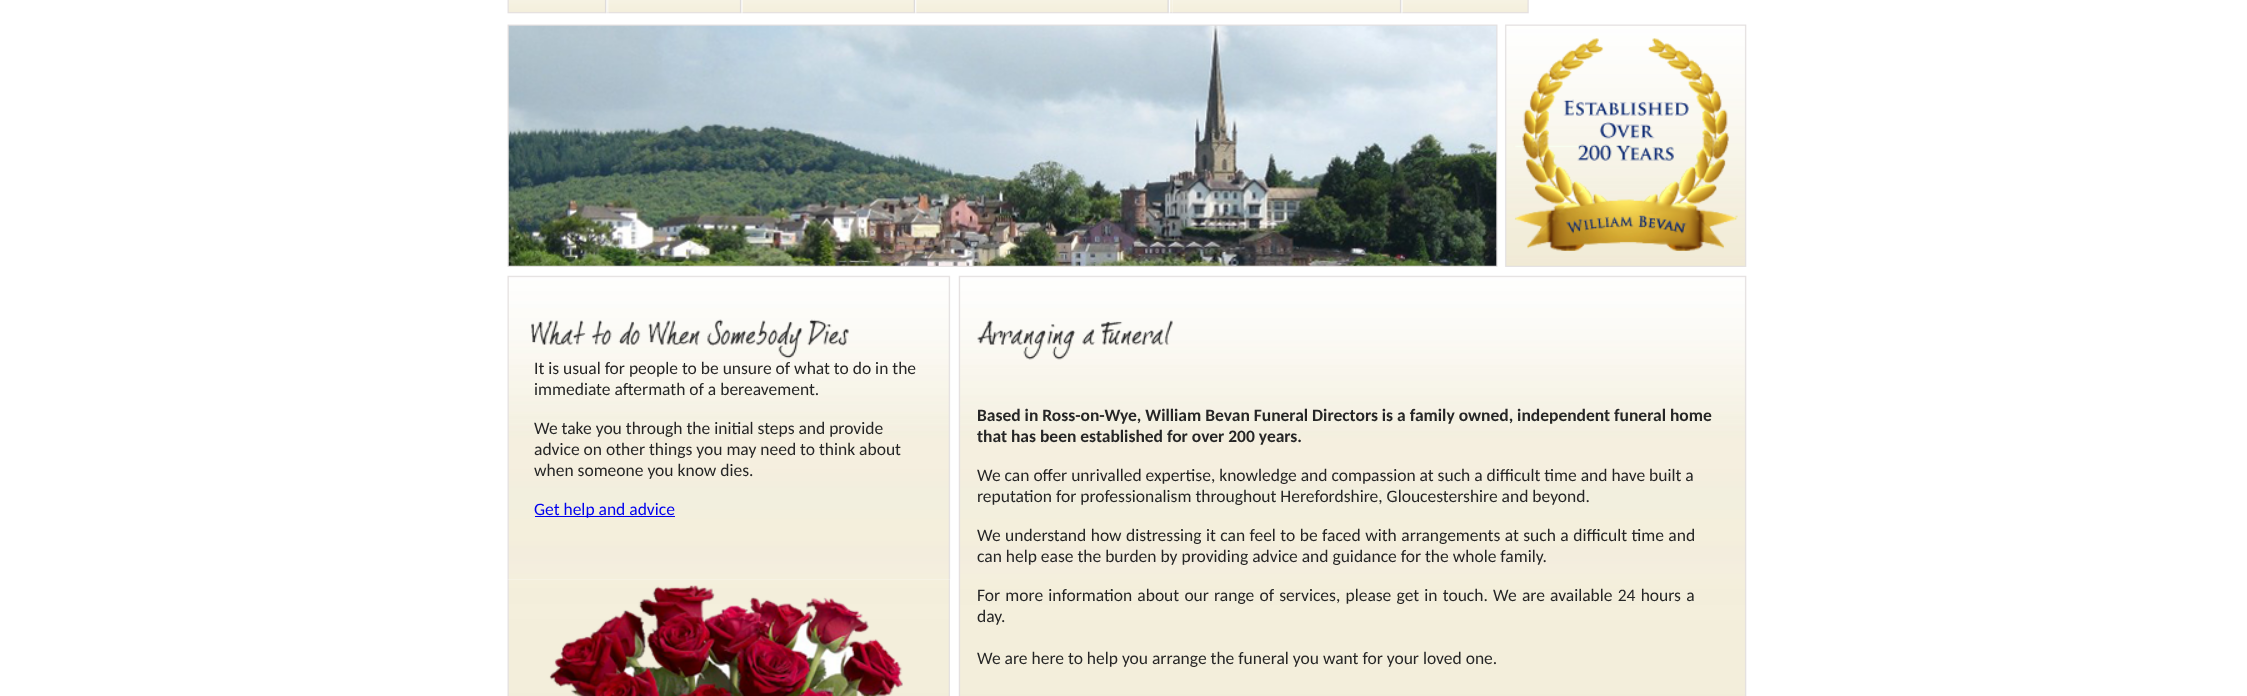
async function draw(canvas) {
  canvas.width = 2247
  canvas.height = 696
  const ctx = canvas.getContext('2d')
  ctx.miterLimit = 4
  ctx.fontKerning = 'normal'
  async function loadImage(src) {
    const img = new Image()
    img.src = src
    await img.decode()
    return img
  }

  ctx.fillStyle = '#fff'
  ctx.fillRect(0, 0, 2247, 696)
  ctx.drawImage(await loadImage('image0.png'), 507, 0, 102, 14)
  ctx.drawImage(await loadImage('image1.png'), 609, 0, 134, 14)
  ctx.drawImage(await loadImage('image2.png'), 742, 0, 174, 14)
  ctx.drawImage(await loadImage('image3.png'), 916, 0, 257, 14)
  ctx.drawImage(await loadImage('image4.png'), 1172, 0, 233, 14)
  ctx.drawImage(await loadImage('image5.png'), 1405, 0, 124, 14)
  ctx.drawImage(await loadImage('image6.png'), 507, 24, 1240, 243)
  ctx.drawImage(await loadImage('image7.png'), 507, 275, 444, 305)
  ctx.font = '17.5px Carlito'
  ctx.fillStyle = '#262626'
  ctx.fillText('It is usual for people to be unsure of what to do in the', 534, 374)
  ctx.fillText('immediate aftermath of a bereavement.', 534, 395)
  ctx.fillText('We take you through the initial steps and provide', 534, 434)
  ctx.fillText('advice on other things you may need to think about', 534, 455)
  ctx.fillText('when someone you know dies.', 534, 476)
  ctx.fillStyle = '#00e'
  ctx.fillRect(535, 516, 140, 1)
  ctx.fillText('Get help and advice', 534, 515)
  ctx.drawImage(await loadImage('image8.png'), 958, 275, 789, 421)
  ctx.font = 'bold 17.5px Carlito'
  ctx.fillStyle = '#262626'
  ctx.fillText('Based in Ross-on-Wye, William Bevan Funeral Directors is a family owned, independent funeral home', 977, 421)
  ctx.fillText('that has been established for over 200 years.', 977, 442)
  ctx.font = '17.5px Carlito'
  ctx.fillText('We can offer unrivalled expertise, knowledge and compassion at such a difficult time and have built a', 977, 481)
  ctx.fillText('reputation for professionalism throughout Herefordshire, Gloucestershire and beyond.', 977, 502)
  ctx.wordSpacing = '0.5px'
  ctx.fillText('We understand how distressing it can feel to be faced with arrangements at such a difficult time and', 977, 541)
  ctx.wordSpacing = '0px'
  ctx.fillText('can help ease the burden by providing advice and guidance for the whole family.', 977, 562)
  ctx.wordSpacing = '1.25px'
  ctx.fillText('For more information about our range of services, please get in touch. We are available 24 hours a', 977, 601)
  ctx.wordSpacing = '0px'
  ctx.fillText('day.', 977, 622)
  ctx.fillText('We are here to help you arrange the funeral you want for your loved one.', 977, 664)
  ctx.drawImage(await loadImage('image9.png'), 507, 579, 443, 117)
}

draw(document.querySelector('canvas'))
